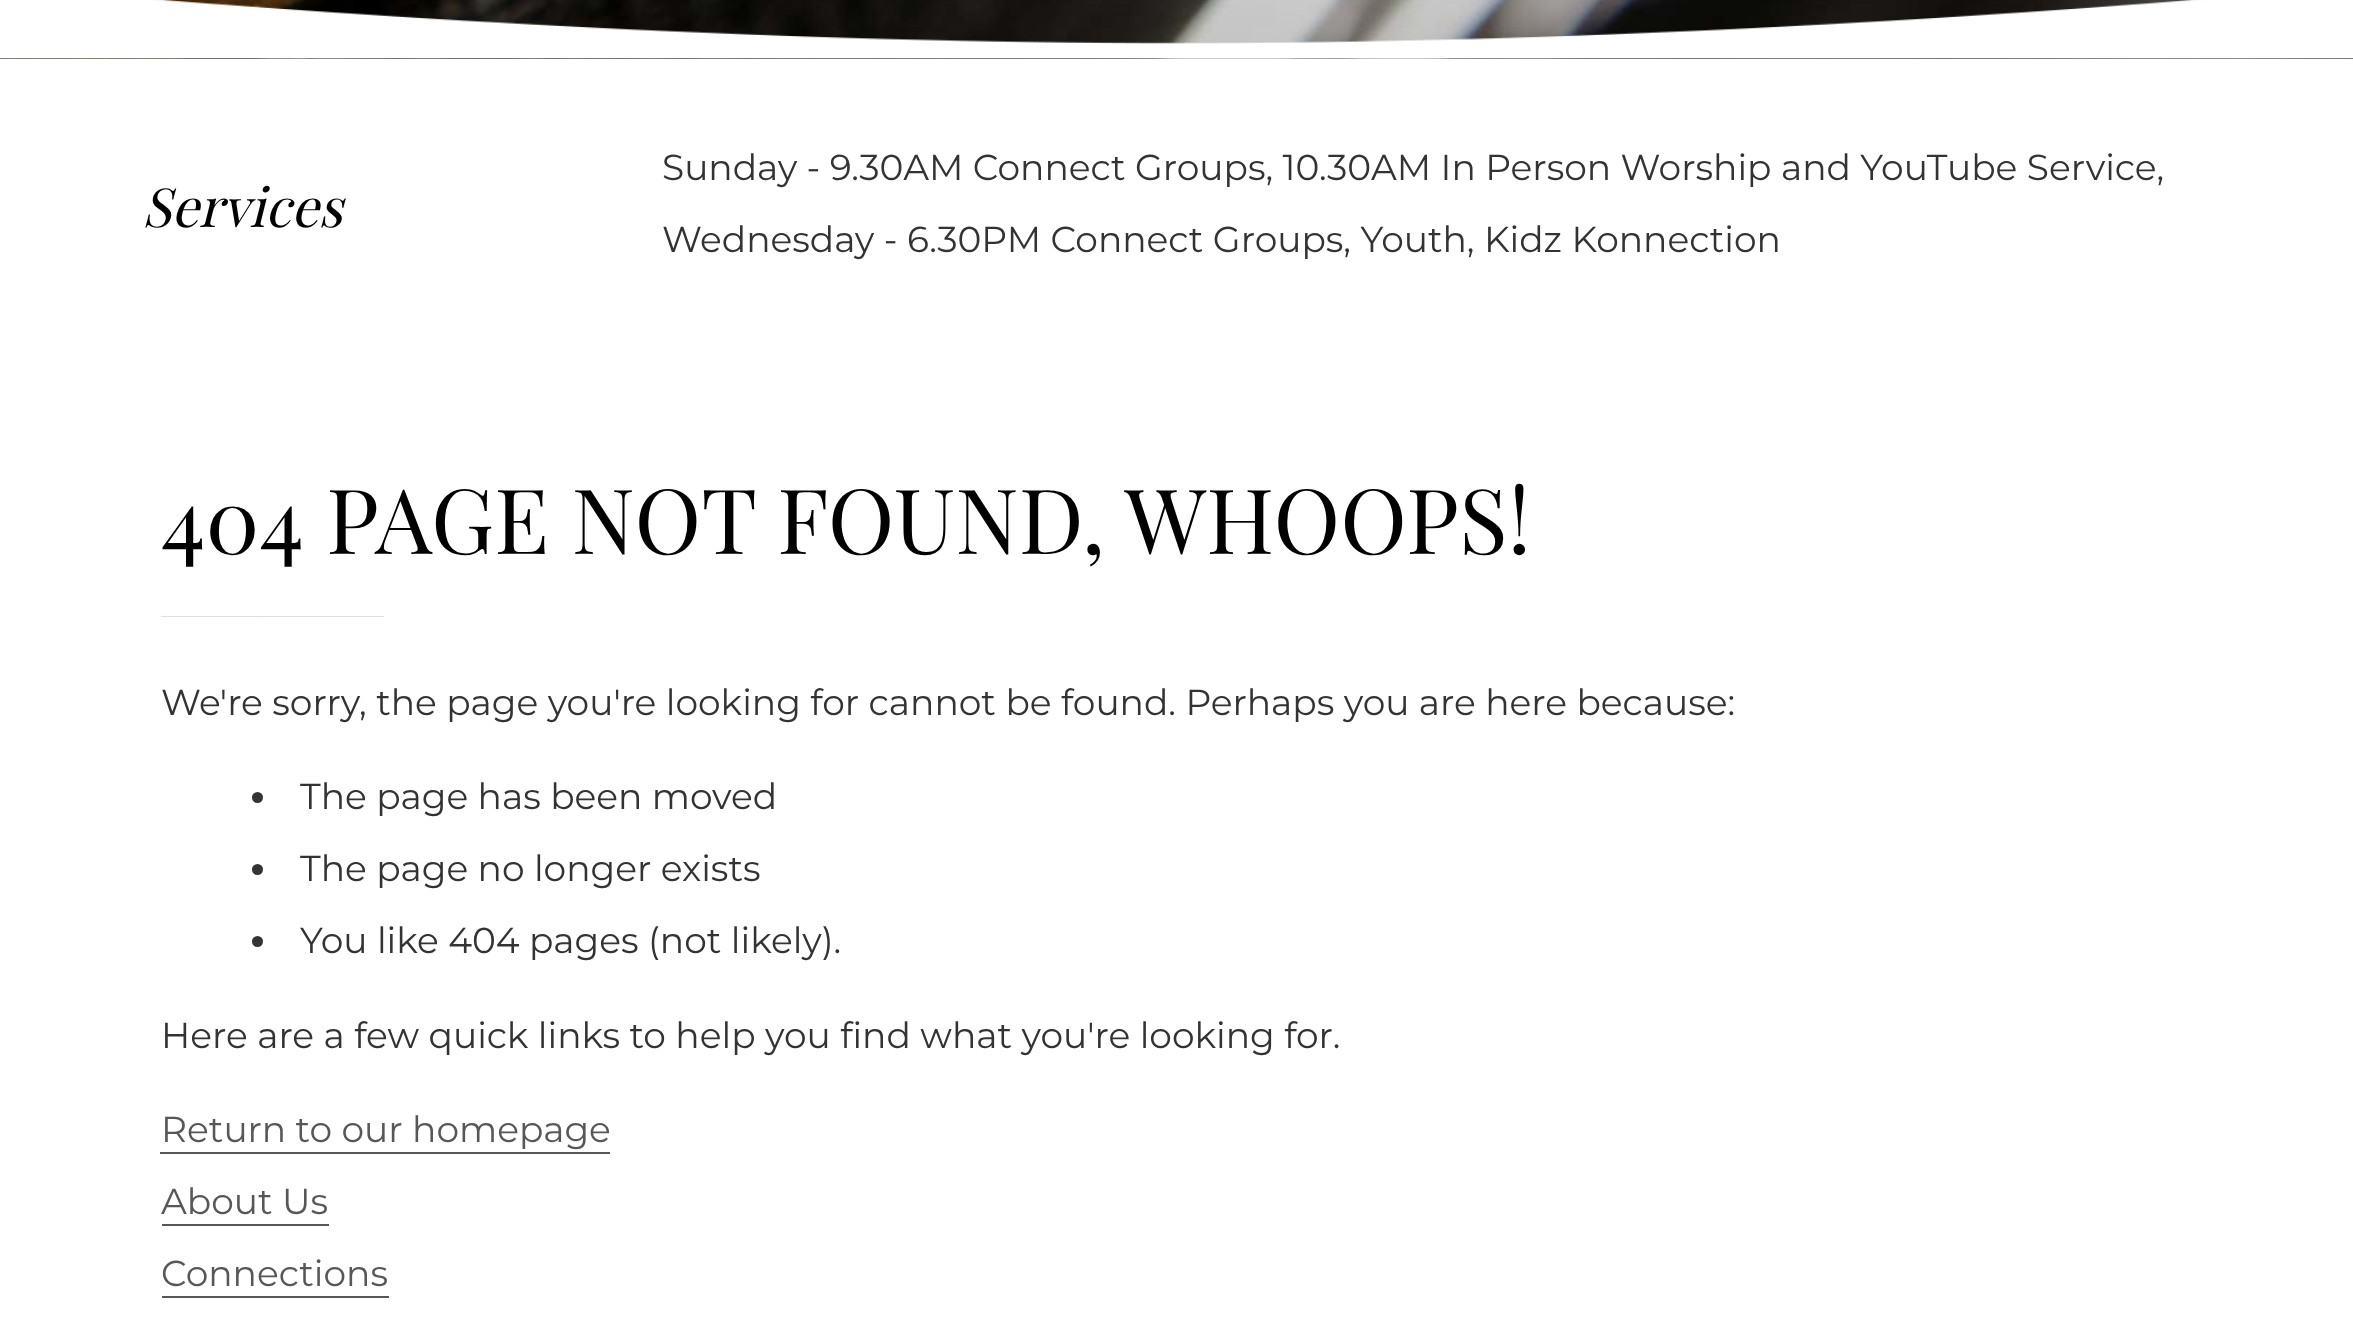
async function draw(canvas) {
  canvas.width = 2353
  canvas.height = 1327
  const ctx = canvas.getContext('2d')
  ctx.miterLimit = 4
  ctx.fontKerning = 'normal'
  async function loadImage(src) {
    const img = new Image()
    img.src = src
    await img.decode()
    return img
  }
  let gradient

  ctx.fillStyle = '#fff'
  ctx.fillRect(0, 0, 2353, 1327)
  ctx.drawImage(await loadImage('image0.png'), 0, 0, 2353, 59)
  gradient = ctx.createRadialGradient(1177, -1064.96, 0, 1177, -1064.96, 1664)
  gradient.addColorStop(0, '#00000000')
  gradient.addColorStop(1, '#00000052')
  ctx.fillStyle = gradient
  ctx.beginPath()
  ctx.rect(0, 0, 2353, 59)
  ctx.save()
  ctx.clip()
  ctx.scale(1, 875 / 1664)
  ctx.fillRect(0, 0, 2353, 2524)
  ctx.restore()
  ctx.drawImage(await loadImage('image1.png'), 0, 0, 2353, 59)
  ctx.font = 'italic 54px Playfair Display'
  ctx.fillStyle = '#000'
  ctx.fillText('Services', 142, 227)
  ctx.font = '36px Montserrat'
  ctx.fillStyle = '#333'
  ctx.fillText('Sunday - 9.30AM Connect Groups, 10.30AM In Person Worship and YouTube Service,', 662, 180)
  ctx.fillText('Wednesday - 6.30PM Connect Groups, Youth, Kidz Konnection', 662, 252)
  ctx.font = '90px Playfair Display'
  ctx.fillStyle = '#000'
  ctx.fillText('404 PAGE NOT FOUND, WHOOPS!', 161, 554)
  ctx.font = 'bold 9px Liberation Serif'
  ctx.fillStyle = '#ccc'
  ctx.fillText('───────────────────────────────────', 161, 619)
  ctx.font = '36px Montserrat'
  ctx.fillStyle = '#333'
  ctx.fillText('We\'re sorry, the page you\'re looking for cannot be found. Perhaps you are here because:', 161, 715)
  ctx.beginPath()
  ctx.arc(257.5, 797.5, 5.5, 0, 2 * Math.PI)
  ctx.fill()
  ctx.fillText('The page has been moved', 300, 809)
  ctx.beginPath()
  ctx.arc(257.5, 869.5, 5.5, 0, 2 * Math.PI)
  ctx.fill()
  ctx.fillText('The page no longer exists', 300, 881)
  ctx.beginPath()
  ctx.arc(257.5, 941.5, 5.5, 0, 2 * Math.PI)
  ctx.fill()
  ctx.fillText('You like 404 pages (not likely).', 300, 953)
  ctx.fillText('Here are a few quick links to help you find what you\'re looking for.', 161, 1048)
  ctx.fillStyle = '#575757'
  ctx.fillText('Return to our homepage', 161, 1142)
  ctx.fillRect(160, 1152, 450, 2)
  ctx.fillText('About Us', 161, 1214)
  ctx.fillRect(162, 1224, 167, 2)
  ctx.fillText('Connections', 161, 1286)
  ctx.fillRect(162, 1296, 227, 2)
}

draw(document.querySelector('canvas'))
